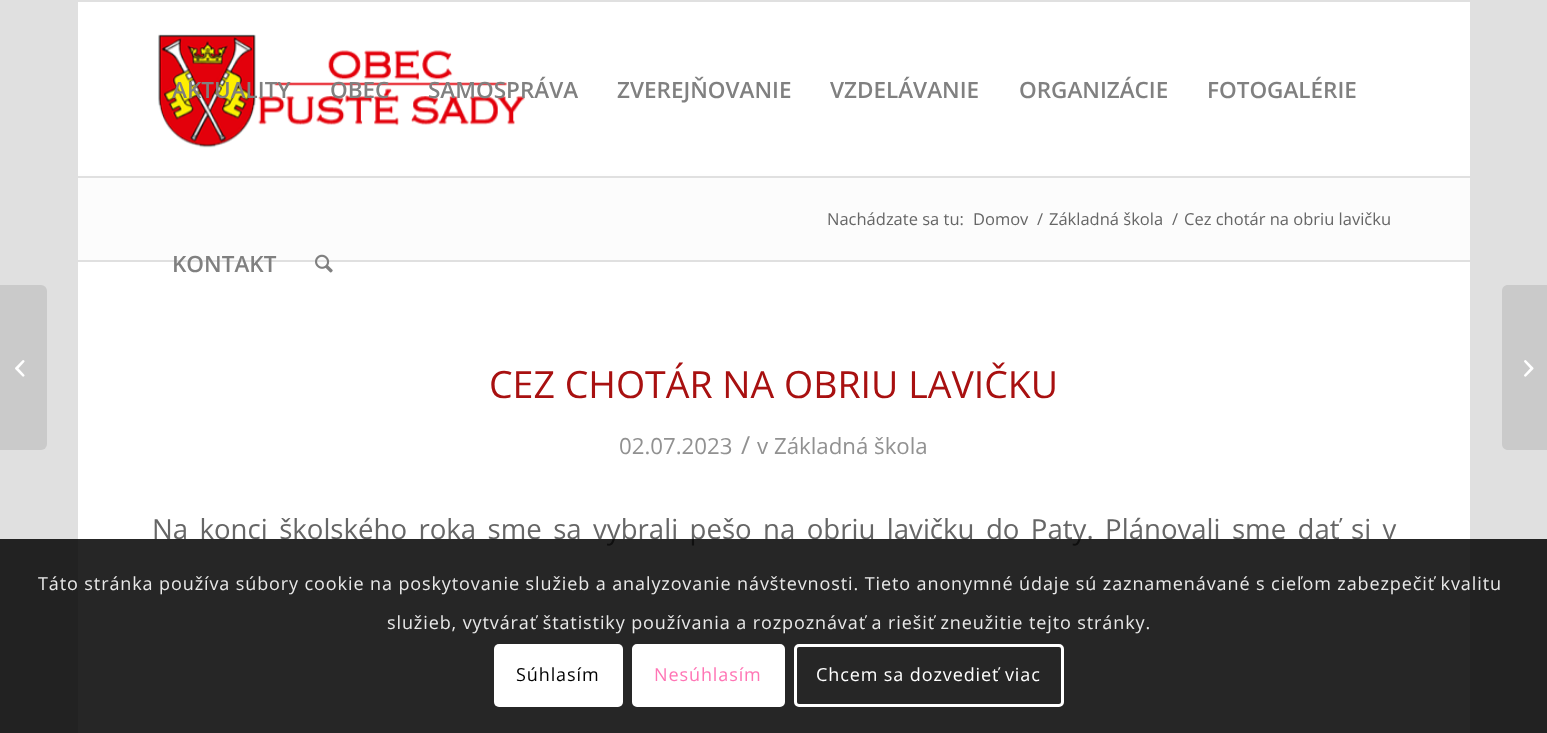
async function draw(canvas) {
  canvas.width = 1547
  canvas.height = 733
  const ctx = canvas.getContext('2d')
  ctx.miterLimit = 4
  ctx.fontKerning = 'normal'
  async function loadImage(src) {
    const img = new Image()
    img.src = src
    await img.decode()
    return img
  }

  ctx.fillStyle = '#e0e0e0'
  ctx.fillRect(0, 0, 1547, 733)
  ctx.fillStyle = '#fff'
  ctx.fillRect(78, 2, 1392, 172)
  ctx.drawImage(await loadImage('image0.png'), 158, 34, 367, 114)
  ctx.font = '600 22.5px Open Sans'
  ctx.fillStyle = '#808080'
  ctx.fillText('AKTUALITY', 172, 98)
  ctx.fillText('OBEC', 330, 98)
  ctx.fillText('SAMOSPRÁVA', 428, 98)
  ctx.fillText('ZVEREJŇOVANIE', 617, 98)
  ctx.fillText('VZDELÁVANIE', 830, 98)
  ctx.fillText('ORGANIZÁCIE', 1019, 98)
  ctx.fillText('FOTOGALÉRIE', 1207, 98)
  ctx.fillStyle = '#fff'
  ctx.fillRect(78, 262, 1392, 471)
  ctx.fillStyle = '#fcfcfc'
  ctx.fillRect(78, 178, 1392, 82)
  ctx.fillStyle = '#808080'
  ctx.fillText('KONTAKT', 172, 272)
  ctx.drawImage(await loadImage('image1.png'), 315, 254, 18, 19)
  ctx.fillStyle = '#cacaca'
  ctx.beginPath()
  ctx.roundRect(0, 285, 47, 165, [0, 6, 6, 0])
  ctx.fill()
  ctx.drawImage(await loadImage('image2.png'), 15, 360, 10, 17)
  ctx.fillStyle = '#fefefe'
  ctx.fillRect(78, 174, 1392, 2)
  ctx.font = '16.5px Open Sans'
  ctx.fillStyle = '#666'
  ctx.fillText('Nachádzate sa tu:', 827, 225)
  ctx.fillText('Domov', 973, 225)
  ctx.fillText('/', 1037, 225)
  ctx.fillText('Základná škola', 1049, 225)
  ctx.fillText('/', 1172, 225)
  ctx.fillText('Cez chotár na obriu lavičku', 1184, 225)
  ctx.font = '37.5px Open Sans'
  ctx.fillStyle = '#a81010'
  ctx.fillText('CEZ CHOTÁR NA OBRIU LAVIČKU', 489, 398)
  ctx.font = '22.25px Open Sans'
  ctx.fillStyle = '#919191'
  ctx.fillText('02.07.2023', 619, 454)
  ctx.font = '25px Open Sans'
  ctx.fillText('/', 741, 454)
  ctx.font = '22.25px Open Sans'
  ctx.fillText('v Základná škola', 757, 454)
  ctx.wordSpacing = '4.25px'
  ctx.font = '27.6px Open Sans'
  ctx.fillStyle = '#666'
  ctx.fillText('Na konci školského roka sme sa vybrali pešo na obriu lavičku do Paty. Plánovali sme dať si v', 152, 539)
  ctx.fillStyle = '#cacaca'
  ctx.beginPath()
  ctx.moveTo(1508, 285)
  ctx.lineTo(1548, 285)
  ctx.lineTo(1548, 450)
  ctx.lineTo(1508, 450)
  ctx.bezierCurveTo(1504.5, 450, 1502, 447.5, 1502, 444)
  ctx.lineTo(1502, 291)
  ctx.bezierCurveTo(1502, 287.5, 1504.5, 285, 1508, 285)
  ctx.closePath()
  ctx.fill()
  ctx.drawImage(await loadImage('image3.png'), 1524, 360, 10, 17)
  ctx.fillStyle = '#000000d9'
  ctx.fillRect(0, 539, 1547, 194)
  ctx.letterSpacing = '0.9px'
  ctx.wordSpacing = '0px'
  ctx.font = '18px Open Sans'
  ctx.fillStyle = '#e9e9e9'
  ctx.fillText('Táto stránka používa súbory cookie na poskytovanie služieb a analyzovanie návštevnosti. Tieto anonymné údaje sú zaznamenávané s cieľom zabezpečiť kvalitu', 38, 590)
  ctx.fillText('služieb, vytvárať štatistiky používania a rozpoznávať a riešiť zneužitie tejto stránky.', 387, 629)
  ctx.fillStyle = '#fff'
  ctx.beginPath()
  ctx.roundRect(494, 644, 129, 63, 5)
  ctx.fill()
  ctx.fillStyle = '#000'
  ctx.fillText('Súhlasím', 516, 681)
  ctx.fillStyle = '#fff'
  ctx.beginPath()
  ctx.roundRect(633.5, 645.5, 150, 60, 3.5)
  ctx.fill()
  ctx.strokeStyle = '#fff'
  ctx.lineWidth = 3
  ctx.stroke()
  ctx.fillStyle = '#ff75b5'
  ctx.fillText('Nesúhlasím', 654, 681)
  ctx.beginPath()
  ctx.roundRect(795.5, 645.5, 267, 60, 3.5)
  ctx.stroke()
  ctx.fillStyle = '#fff'
  ctx.fillText('Chcem sa dozvedieť viac', 816, 681)
}

draw(document.querySelector('canvas'))
